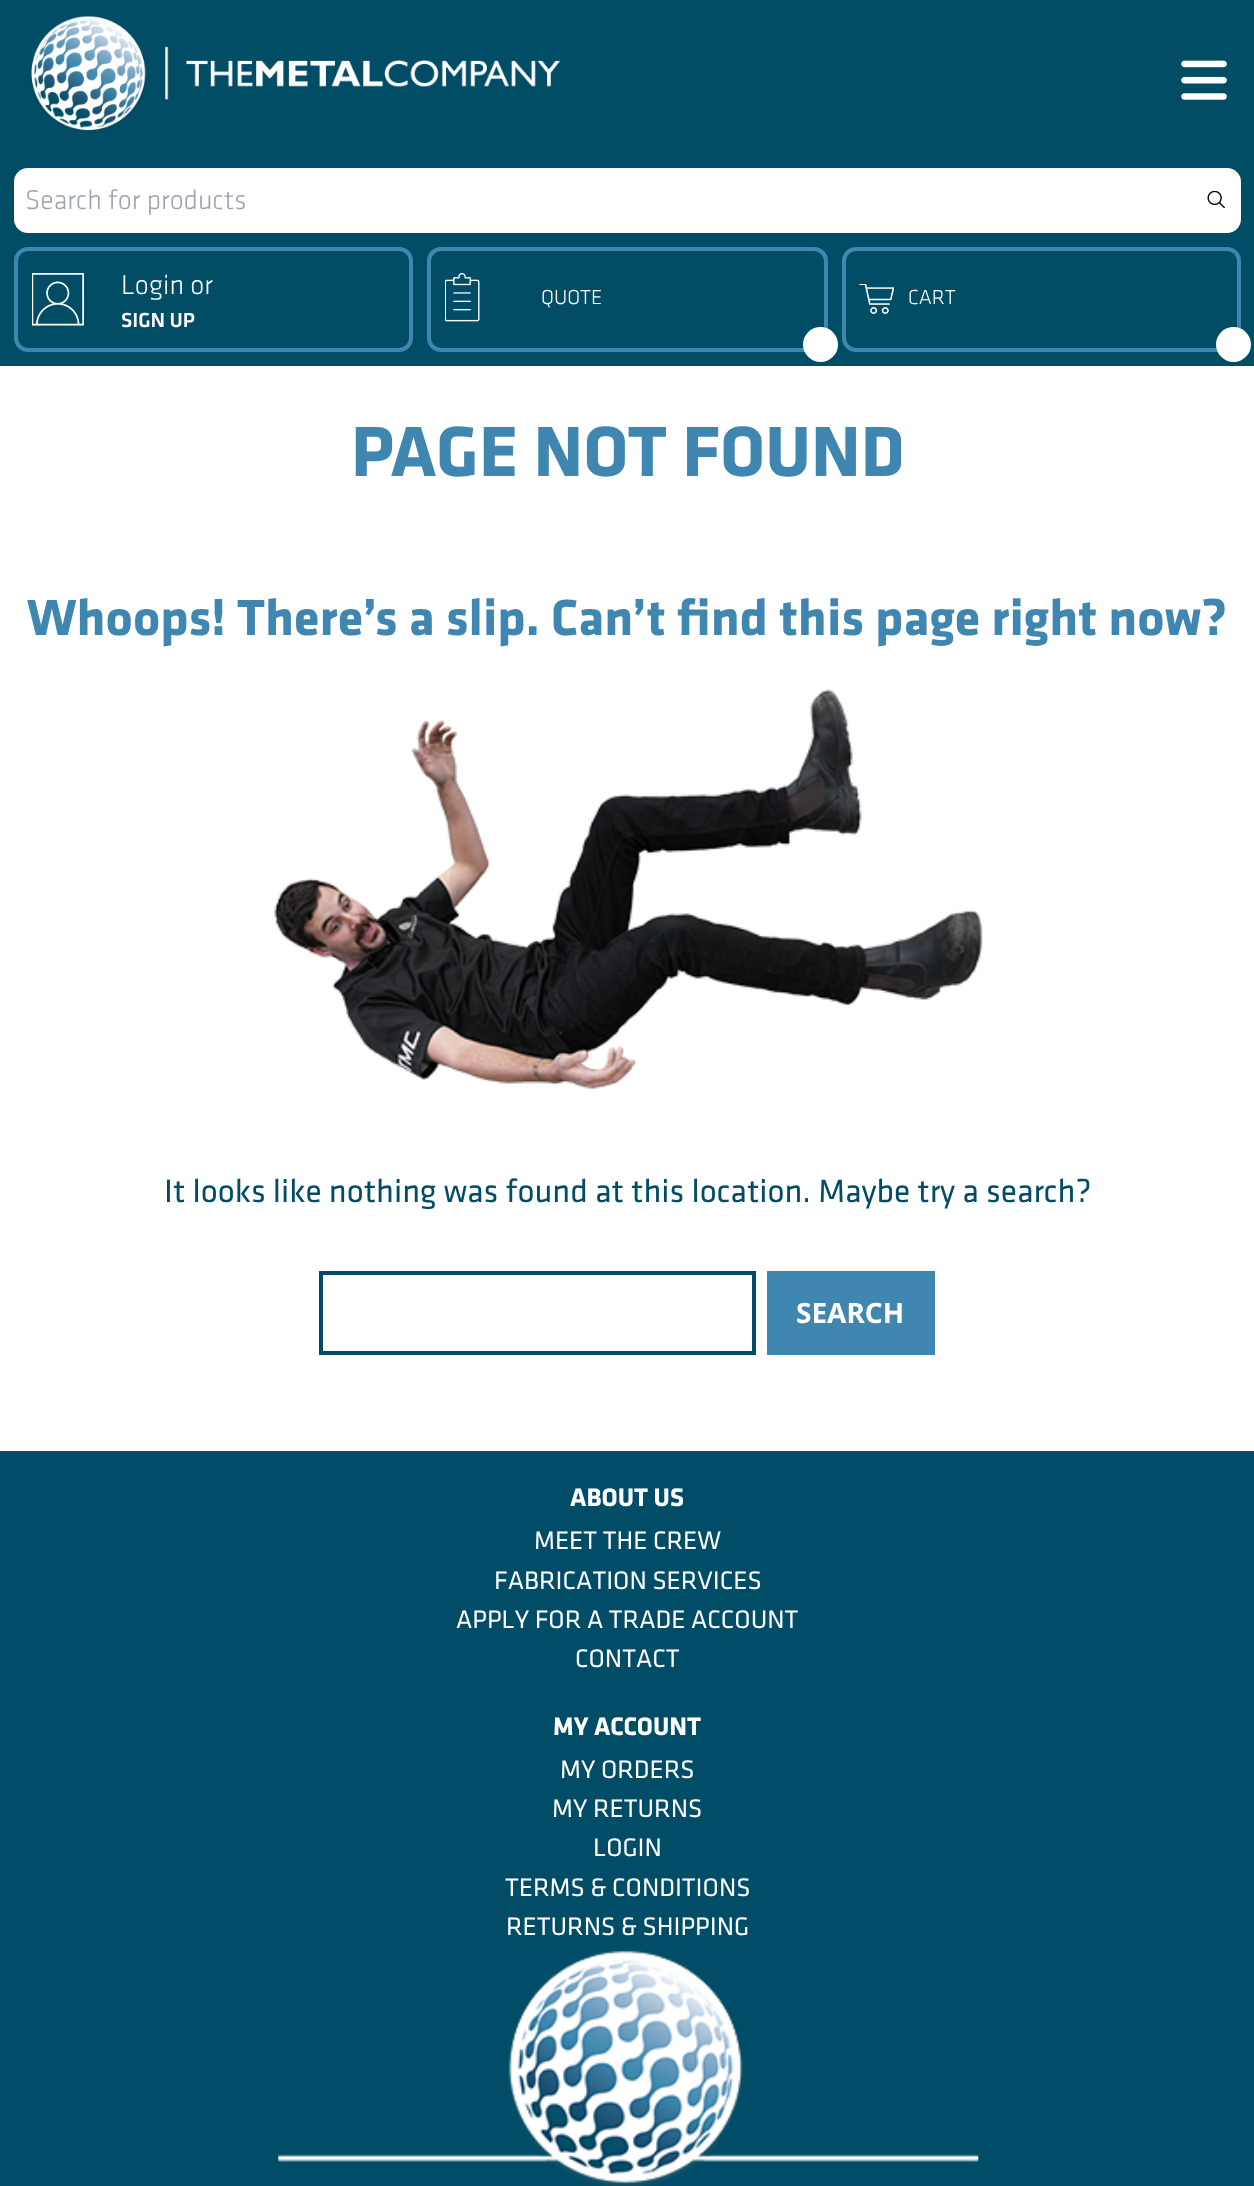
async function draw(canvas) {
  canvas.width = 1254
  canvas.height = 2186
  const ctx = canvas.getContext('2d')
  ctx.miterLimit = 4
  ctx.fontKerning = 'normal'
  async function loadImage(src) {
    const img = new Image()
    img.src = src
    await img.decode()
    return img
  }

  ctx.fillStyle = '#fff'
  ctx.fillRect(0, 0, 1254, 2186)
  ctx.fillStyle = '#024d66'
  ctx.fillRect(0, 0, 1254, 366)
  ctx.drawImage(await loadImage('image0.png'), 31, 16, 529, 116)
  ctx.drawImage(await loadImage('image1.png'), 1181, 60, 46, 40)
  ctx.fillStyle = '#fff'
  ctx.beginPath()
  ctx.roundRect(14, 168, 1227, 65, 14)
  ctx.fill()
  ctx.font = '300 28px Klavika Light'
  ctx.fillStyle = '#9ca3af'
  ctx.fillText('Search for products', 25, 209)
  ctx.drawImage(await loadImage('image2.png'), 1207, 191, 18, 17)
  ctx.beginPath()
  ctx.roundRect(16, 249, 395, 101, 12)
  ctx.strokeStyle = '#4087b0'
  ctx.lineWidth = 4
  ctx.stroke()
  ctx.drawImage(await loadImage('image3.png'), 32, 273, 52, 53)
  ctx.fillStyle = '#fff'
  ctx.fillText('Login or', 121, 294)
  ctx.font = '500 21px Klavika'
  ctx.fillText('SIGN UP', 121, 327)
  ctx.beginPath()
  ctx.roundRect(429, 249, 397, 101, 12)
  ctx.stroke()
  ctx.drawImage(await loadImage('image4.png'), 445, 273, 35, 49)
  ctx.font = '300 21px Klavika Light'
  ctx.fillText('QUOTE', 541, 304)
  ctx.beginPath()
  ctx.arc(820.5, 344.5, 17.5, 0, 2 * Math.PI)
  ctx.fill()
  ctx.beginPath()
  ctx.roundRect(844, 249, 395, 101, 12)
  ctx.stroke()
  ctx.drawImage(await loadImage('image5.png'), 859, 284, 35, 30)
  ctx.fillText('CART', 908, 304)
  ctx.beginPath()
  ctx.arc(1233.5, 344.5, 17.5, 0, 2 * Math.PI)
  ctx.fill()
  ctx.font = 'bold 73.5px Klavika'
  ctx.fillStyle = '#3f87b0'
  ctx.fillText('PAGE NOT FOUND', 351, 476)
  ctx.font = 'bold 52.5px Klavika'
  ctx.fillText('Whoops! There’s a slip. Can’t find this page right now?', 27, 635)
  ctx.drawImage(await loadImage('image6.png'), 274, 689, 709, 401)
  ctx.font = '33.6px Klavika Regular'
  ctx.fillStyle = '#014d67'
  ctx.fillText('It looks like nothing was found at this location. Maybe try a search?', 164, 1202)
  ctx.strokeStyle = '#014d67'
  ctx.strokeRect(321, 1273, 433, 80)
  ctx.fillStyle = '#3f86b0'
  ctx.fillRect(767, 1271, 168, 84)
  ctx.font = 'bold 28px Noto Sans'
  ctx.fillStyle = '#fff'
  ctx.fillText('SEARCH', 796, 1323)
  ctx.fillStyle = '#014d67'
  ctx.fillRect(0, 1451, 1254, 735)
  ctx.font = 'bold 26.25px Klavika'
  ctx.fillStyle = '#fff'
  ctx.fillText('ABOUT US', 570, 1506)
  ctx.font = '26.25px Klavika Regular'
  ctx.fillText('MEET THE CREW', 534, 1549)
  ctx.fillText('FABRICATION SERVICES', 494, 1589)
  ctx.fillText('APPLY FOR A TRADE ACCOUNT', 456, 1628)
  ctx.fillText('CONTACT', 575, 1667)
  ctx.font = 'bold 26.25px Klavika'
  ctx.fillText('MY ACCOUNT', 553, 1735)
  ctx.font = '26.25px Klavika Regular'
  ctx.fillText('MY ORDERS', 560, 1778)
  ctx.fillText('MY RETURNS', 552, 1817)
  ctx.fillText('LOGIN', 593, 1856)
  ctx.fillText('TERMS & CONDITIONS', 505, 1896)
  ctx.fillText('RETURNS & SHIPPING', 506, 1935)
  ctx.drawImage(await loadImage('image7.png'), 278, 1950, 701, 236)
}

draw(document.querySelector('canvas'))
